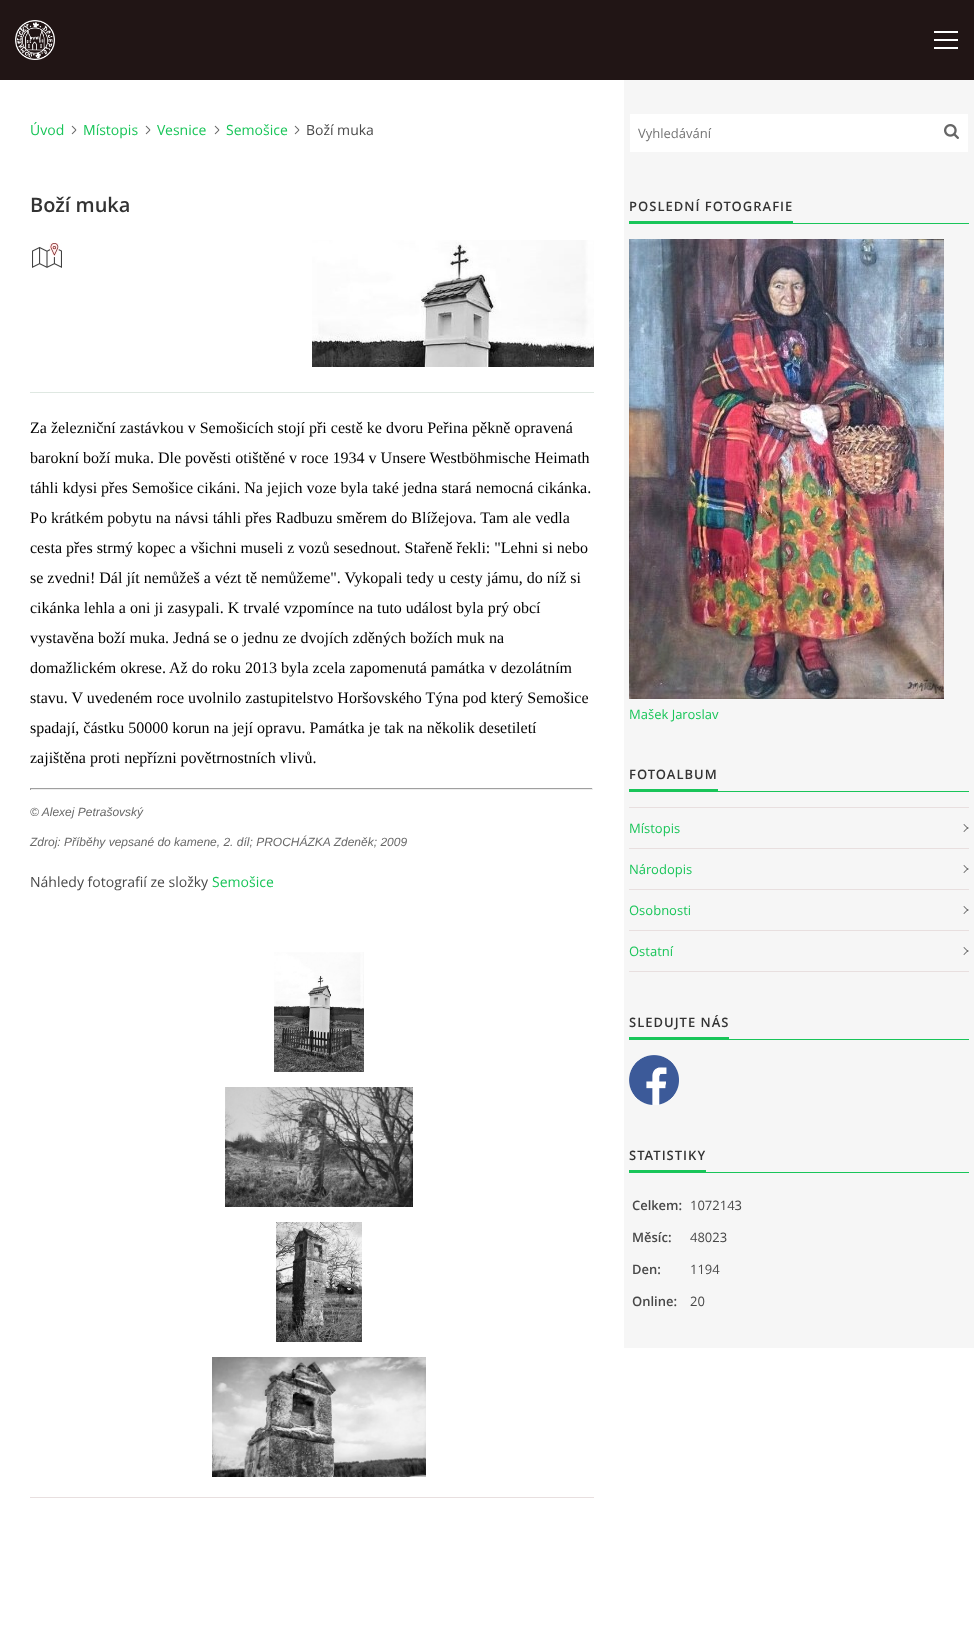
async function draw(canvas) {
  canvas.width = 974
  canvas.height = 1637
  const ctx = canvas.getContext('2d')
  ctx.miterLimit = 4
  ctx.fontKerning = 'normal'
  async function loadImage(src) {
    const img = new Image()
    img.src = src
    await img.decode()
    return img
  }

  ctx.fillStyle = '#fff'
  ctx.fillRect(0, 0, 974, 1637)
  ctx.fillStyle = '#211515'
  ctx.fillRect(0, 0, 974, 80)
  ctx.drawImage(await loadImage('image0.png'), 15, 20, 40, 40)
  ctx.drawImage(await loadImage('image1.png'), 934, 31, 24, 18)
  ctx.drawImage(await loadImage('image2.png'), 71, 125, 6, 10)
  ctx.font = '14px Open Sans'
  ctx.fillStyle = '#19c559'
  ctx.fillText('Úvod', 30, 135)
  ctx.drawImage(await loadImage('image2.png'), 145, 125, 6, 10)
  ctx.fillText('Místopis', 83, 135)
  ctx.drawImage(await loadImage('image2.png'), 214, 125, 6, 10)
  ctx.fillText('Vesnice', 157, 135)
  ctx.drawImage(await loadImage('image2.png'), 294, 125, 6, 10)
  ctx.fillText('Semošice', 226, 135)
  ctx.fillStyle = '#484848'
  ctx.fillText('Boží muka', 306, 135)
  ctx.fillStyle = '#e8dfdf'
  ctx.fillRect(30, 1497, 564, 1)
  ctx.font = '600 20px Open Sans'
  ctx.fillStyle = '#333'
  ctx.fillText('Boží muka', 30, 212)
  ctx.fillStyle = '#dfe8e2'
  ctx.fillRect(30, 392, 564, 1)
  ctx.drawImage(await loadImage('image3.png'), 32, 243, 30, 25)
  ctx.drawImage(await loadImage('image4.png'), 312, 240, 282, 127)
  ctx.font = '16px Liberation Serif'
  ctx.fillStyle = '#000'
  ctx.fillText('Za železniční zastávkou v Semošicích stojí při cestě ke dvoru Peřina pěkně opravená', 30, 433)
  ctx.fillText('barokní boží muka. Dle pověsti otištěné v roce 1934 v Unsere Westböhmische Heimath', 30, 463)
  ctx.fillText('táhli kdysi přes Semošice cikáni. Na jejich voze byla také jedna stará nemocná cikánka.', 30, 493)
  ctx.fillText('Po krátkém pobytu na návsi táhli přes Radbuzu směrem do Blížejova. Tam ale vedla', 30, 523)
  ctx.fillText('cesta přes strmý kopec a všichni museli z vozů sesednout. Stařeně řekli: "Lehni si nebo', 30, 553)
  ctx.fillText('se zvedni! Dál jít nemůžeš a vézt tě nemůžeme". Vykopali tedy u cesty jámu, do níž si', 30, 583)
  ctx.fillText('cikánka lehla a oni ji zasypali. K trvalé vzpomínce na tuto událost byla prý obcí', 30, 613)
  ctx.fillText('vystavěna boží muka. Jedná se o jednu ze dvojích zděných božích muk na', 30, 643)
  ctx.fillText('domažlickém okrese. Až do roku 2013 byla zcela zapomenutá památka v dezolátním', 30, 673)
  ctx.fillText('stavu. V uvedeném roce uvolnilo zastupitelstvo Horšovského Týna pod který Semošice', 30, 703)
  ctx.fillText('spadají, částku 50000 korun na její opravu. Památka je tak na několik desetiletí', 30, 733)
  ctx.fillText('zajištěna proti nepřízni povětrnostních vlivů.', 30, 763)
  ctx.fillStyle = '#9f9f9f'
  ctx.fillRect(30, 788, 563, 1)
  ctx.fillStyle = '#eee'
  ctx.fillRect(592, 788, 1, 2)
  ctx.fillRect(30, 789, 563, 1)
  ctx.fillStyle = '#9f9f9f'
  ctx.fillRect(30, 788, 1, 2)
  ctx.font = 'italic 12px Liberation Sans'
  ctx.fillStyle = '#696969'
  ctx.fillText('© Alexej Petrašovský', 30, 816)
  ctx.fillText('Zdroj: Příběhy vepsané do kamene, 2. díl; PROCHÁZKA Zdeněk; 2009', 30, 846)
  ctx.font = '14px Open Sans'
  ctx.fillStyle = '#484848'
  ctx.fillText('Náhledy fotografií ze složky', 30, 887)
  ctx.fillStyle = '#19c559'
  ctx.fillText('Semošice', 212, 887)
  ctx.drawImage(await loadImage('image5.png'), 274, 952, 90, 120)
  ctx.drawImage(await loadImage('image6.png'), 225, 1087, 188, 120)
  ctx.drawImage(await loadImage('image7.png'), 276, 1222, 86, 120)
  ctx.drawImage(await loadImage('image8.png'), 212, 1357, 214, 120)
  ctx.fillStyle = '#f6f6f6'
  ctx.fillRect(624, 80, 350, 1268)
  ctx.fillStyle = '#fff'
  ctx.fillRect(630, 114, 338, 38)
  ctx.font = '13px Open Sans'
  ctx.fillStyle = '#757575'
  ctx.fillText('Vyhledávání', 638, 138)
  ctx.drawImage(await loadImage('image9.png'), 944, 124, 15, 15)
  ctx.letterSpacing = '1px'
  ctx.font = '600 13px Open Sans'
  ctx.fillStyle = '#333'
  ctx.fillText('POSLEDNÍ FOTOGRAFIE', 629, 211)
  ctx.fillStyle = '#19c559'
  ctx.fillRect(629, 221, 164, 2)
  ctx.fillRect(629, 223, 340, 1)
  ctx.drawImage(await loadImage('image10.png'), 629, 239, 315, 460)
  ctx.letterSpacing = '0px'
  ctx.font = '13px Open Sans'
  ctx.fillText('Mašek Jaroslav', 629, 719)
  ctx.letterSpacing = '1px'
  ctx.font = '600 13px Open Sans'
  ctx.fillStyle = '#333'
  ctx.fillText('FOTOALBUM', 629, 779)
  ctx.fillStyle = '#19c559'
  ctx.fillRect(629, 789, 89, 2)
  ctx.fillRect(629, 791, 340, 1)
  ctx.fillStyle = '#e8dfdf'
  ctx.fillRect(629, 807, 340, 1)
  ctx.fillRect(629, 848, 340, 1)
  ctx.letterSpacing = '0px'
  ctx.font = '13px Open Sans'
  ctx.fillStyle = '#19c559'
  ctx.fillText('Místopis', 629, 833)
  ctx.fillStyle = '#484848'
  ctx.beginPath()
  ctx.moveTo(964, 824)
  ctx.lineTo(968.5, 828.5)
  ctx.lineTo(968, 829)
  ctx.lineTo(963.5, 824.5)
  ctx.closePath()
  ctx.fill()
  ctx.beginPath()
  ctx.moveTo(963.5, 831.5)
  ctx.lineTo(968, 827)
  ctx.lineTo(968.5, 827.5)
  ctx.lineTo(964, 832)
  ctx.closePath()
  ctx.fill()
  ctx.fillStyle = '#e8dfdf'
  ctx.fillRect(629, 889, 340, 1)
  ctx.fillStyle = '#19c559'
  ctx.fillText('Národopis', 629, 874)
  ctx.fillStyle = '#484848'
  ctx.beginPath()
  ctx.moveTo(964, 865)
  ctx.lineTo(968.5, 869.5)
  ctx.lineTo(968, 870)
  ctx.lineTo(963.5, 865.5)
  ctx.closePath()
  ctx.fill()
  ctx.beginPath()
  ctx.moveTo(963.5, 872.5)
  ctx.lineTo(968, 868)
  ctx.lineTo(968.5, 868.5)
  ctx.lineTo(964, 873)
  ctx.closePath()
  ctx.fill()
  ctx.fillStyle = '#e8dfdf'
  ctx.fillRect(629, 930, 340, 1)
  ctx.fillStyle = '#19c559'
  ctx.fillText('Osobnosti', 629, 915)
  ctx.fillStyle = '#484848'
  ctx.beginPath()
  ctx.moveTo(964, 906)
  ctx.lineTo(968.5, 910.5)
  ctx.lineTo(968, 911)
  ctx.lineTo(963.5, 906.5)
  ctx.closePath()
  ctx.fill()
  ctx.beginPath()
  ctx.moveTo(963.5, 913.5)
  ctx.lineTo(968, 909)
  ctx.lineTo(968.5, 909.5)
  ctx.lineTo(964, 914)
  ctx.closePath()
  ctx.fill()
  ctx.fillStyle = '#e8dfdf'
  ctx.fillRect(629, 971, 340, 1)
  ctx.fillStyle = '#19c559'
  ctx.fillText('Ostatní', 629, 956)
  ctx.fillStyle = '#484848'
  ctx.beginPath()
  ctx.moveTo(964, 947)
  ctx.lineTo(968.5, 951.5)
  ctx.lineTo(968, 952)
  ctx.lineTo(963.5, 947.5)
  ctx.closePath()
  ctx.fill()
  ctx.beginPath()
  ctx.moveTo(963.5, 954.5)
  ctx.lineTo(968, 950)
  ctx.lineTo(968.5, 950.5)
  ctx.lineTo(964, 955)
  ctx.closePath()
  ctx.fill()
  ctx.letterSpacing = '1px'
  ctx.font = '600 13px Open Sans'
  ctx.fillStyle = '#333'
  ctx.fillText('SLEDUJTE NÁS', 629, 1027)
  ctx.fillStyle = '#19c559'
  ctx.fillRect(629, 1037, 100, 2)
  ctx.fillRect(629, 1039, 340, 1)
  ctx.drawImage(await loadImage('image11.png'), 629, 1055, 50, 50)
  ctx.fillStyle = '#333'
  ctx.fillText('STATISTIKY', 629, 1160)
  ctx.fillStyle = '#19c559'
  ctx.fillRect(629, 1170, 77, 2)
  ctx.fillRect(629, 1172, 340, 1)
  ctx.letterSpacing = '0px'
  ctx.fillStyle = '#484848'
  ctx.fillText('Celkem:', 632, 1210)
  ctx.font = '13px Open Sans'
  ctx.fillText('1072143', 690, 1210)
  ctx.font = '600 13px Open Sans'
  ctx.fillText('Měsíc:', 632, 1242)
  ctx.font = '13px Open Sans'
  ctx.fillText('48023', 690, 1242)
  ctx.font = '600 13px Open Sans'
  ctx.fillText('Den:', 632, 1274)
  ctx.font = '13px Open Sans'
  ctx.fillText('1194', 690, 1274)
  ctx.font = '600 13px Open Sans'
  ctx.fillText('Online:', 632, 1306)
  ctx.font = '13px Open Sans'
  ctx.fillText('20', 690, 1306)
}

draw(document.querySelector('canvas'))
